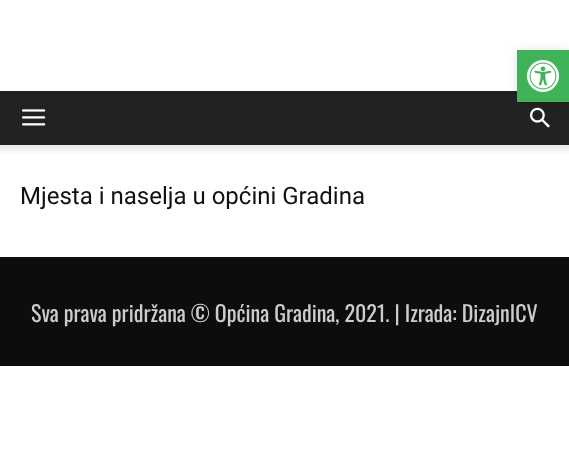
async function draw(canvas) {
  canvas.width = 569
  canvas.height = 470
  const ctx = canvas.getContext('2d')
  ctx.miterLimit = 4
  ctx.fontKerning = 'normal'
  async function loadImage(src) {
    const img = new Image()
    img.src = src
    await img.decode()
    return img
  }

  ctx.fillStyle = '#fff'
  ctx.fillRect(0, 0, 569, 470)
  ctx.fillStyle = '#222'
  ctx.fillRect(0, 91, 569, 54)
  ctx.drawImage(await loadImage('image2.png'), 530, 107, 20, 21)
  ctx.fillStyle = '#0000001a'
  ctx.filter = 'blur(5px)'
  ctx.beginPath()
  ctx.rect(517, 50, 52, 52)
  ctx.fill()
  ctx.filter = 'none'
  ctx.fillStyle = '#40b257'
  ctx.fillRect(517, 50, 52, 52)
  ctx.drawImage(await loadImage('image0.png'), 527, 60, 32, 32)
  ctx.drawImage(await loadImage('image1.png'), 22, 109, 24, 17)
  ctx.drawImage(await loadImage('image3.png'), 0, 145, 569, 9)
  ctx.font = '24px Roboto'
  ctx.fillStyle = '#111'
  ctx.fillText('Mjesta i naselja u općini Gradina', 20, 204)
  ctx.fillStyle = '#0d0d0d'
  ctx.fillRect(0, 257, 569, 109)
  ctx.font = '22px Oswald'
  ctx.fillStyle = '#ccc'
  ctx.fillText('Sva prava pridržana © Općina Gradina, 2021. | Izrada: DizajnICV', 31, 322)
}

draw(document.querySelector('canvas'))
